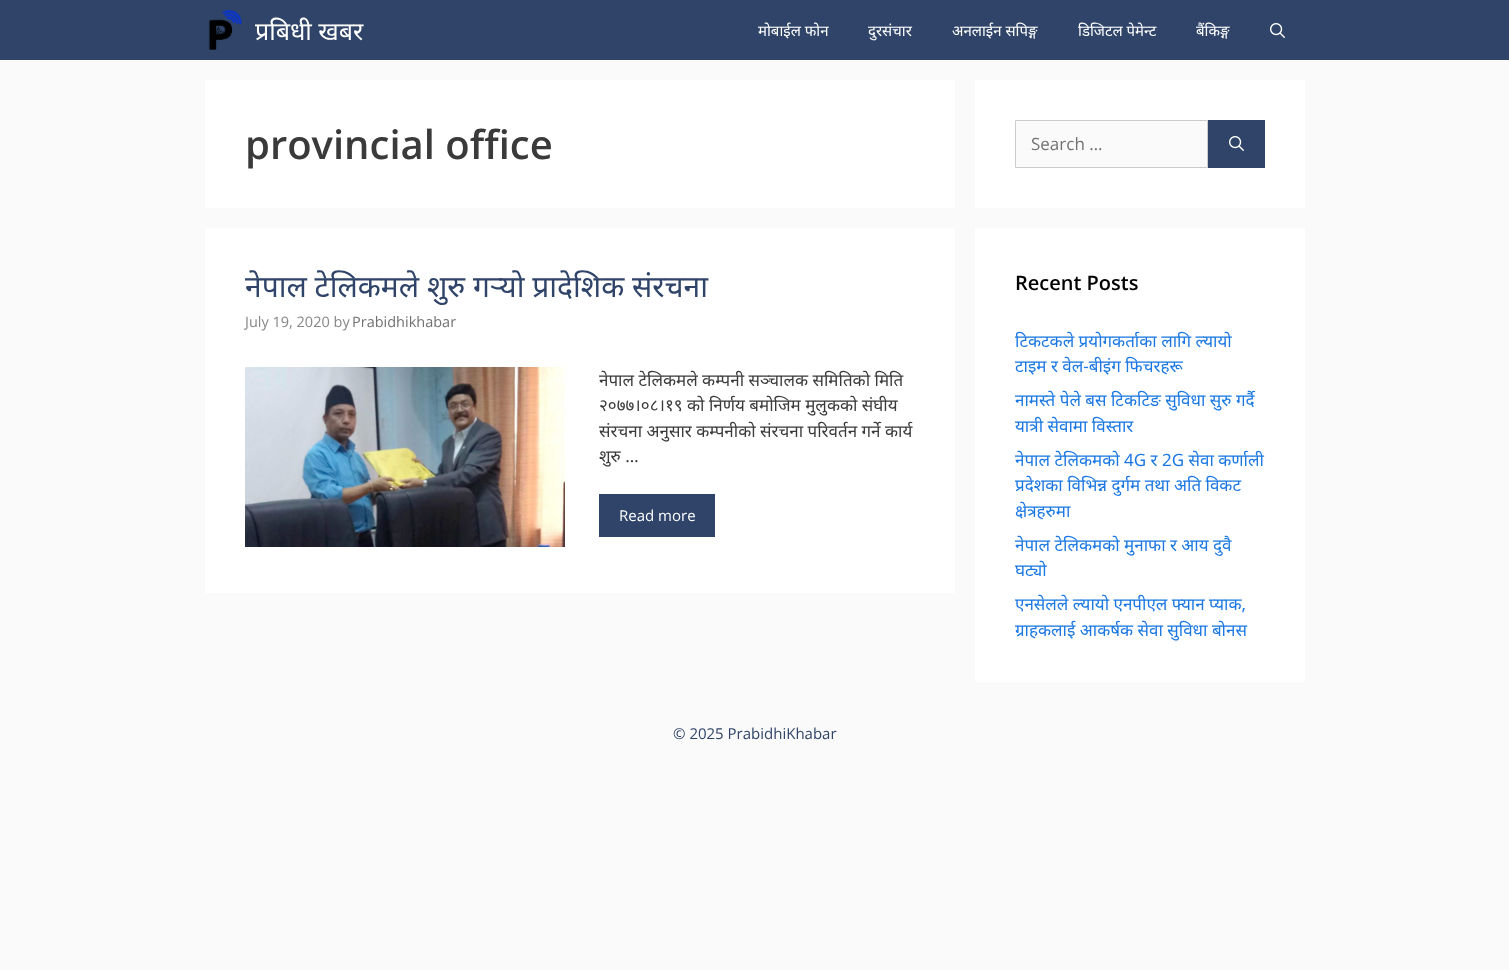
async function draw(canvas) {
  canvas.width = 1509
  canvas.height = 970
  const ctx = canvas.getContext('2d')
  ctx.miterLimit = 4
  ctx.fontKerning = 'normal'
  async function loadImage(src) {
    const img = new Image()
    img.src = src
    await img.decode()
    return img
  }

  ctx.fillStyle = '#fafafa'
  ctx.fillRect(0, 0, 1509, 970)
  ctx.fillStyle = '#2f4468'
  ctx.fillRect(0, 0, 1509, 60)
  ctx.drawImage(await loadImage('image0.png'), 208, 10, 34, 40)
  ctx.font = '25px Noto Sans'
  ctx.fillStyle = '#fff'
  ctx.fillText('प्रबिधी खबर', 255, 40)
  ctx.font = '15px Noto Sans'
  ctx.fillText('मोबाईल फोन', 758, 36)
  ctx.fillText('दुरसंचार', 868, 36)
  ctx.fillText('अनलाईन सपिङ्ग', 952, 36)
  ctx.fillText('डिजिटल पेमेन्ट', 1078, 36)
  ctx.fillText('बैंकिङ्ग', 1196, 36)
  ctx.drawImage(await loadImage('image1.png'), 1270, 23, 15, 15)
  ctx.fillRect(205, 80, 750, 128)
  ctx.font = '600 40px Open Sans'
  ctx.fillStyle = '#3a3a3a'
  ctx.fillText('provincial office', 245, 159)
  ctx.fillStyle = '#fff'
  ctx.fillRect(205, 228, 750, 365)
  ctx.font = '30px Noto Sans'
  ctx.fillStyle = '#2f4468'
  ctx.fillText('नेपाल टेलिकमले शुरु गर्‍यो प्रादेशिक संरचना', 245, 297)
  ctx.font = '14.5px Open Sans'
  ctx.fillStyle = '#878787'
  ctx.fillText('July 19, 2020 by', 245, 327)
  ctx.fillStyle = '#727272'
  ctx.fillText('Prabidhikhabar', 352, 327)
  ctx.drawImage(await loadImage('image2.png'), 245, 367, 320, 180)
  ctx.font = '17px Noto Sans'
  ctx.fillStyle = '#3a3a3a'
  ctx.fillText('नेपाल टेलिकमले कम्पनी सञ्चालक समितिको मिति', 599, 386)
  ctx.fillText('२०७७।०८।१९ को निर्णय बमोजिम मुलुकको संघीय', 599, 411)
  ctx.fillText('संरचना अनुसार कम्पनीको संरचना परिवर्तन गर्ने कार्य', 599, 437)
  ctx.fillText('शुरु …', 599, 462)
  ctx.fillStyle = '#2f4468'
  ctx.fillRect(599, 494, 116, 43)
  ctx.font = '15px Open Sans'
  ctx.fillStyle = '#fff'
  ctx.fillText('Read more', 619, 521)
  ctx.fillRect(975, 80, 330, 128)
  ctx.fillStyle = '#fafafa'
  ctx.beginPath()
  ctx.rect(1015.5, 120.5, 192, 47)
  ctx.fill()
  ctx.strokeStyle = '#ccc'
  ctx.stroke()
  ctx.font = '17px Open Sans'
  ctx.fillStyle = '#727272'
  ctx.fillText('Search …', 1031, 150)
  ctx.fillStyle = '#2f4468'
  ctx.fillRect(1208, 120, 57, 48)
  ctx.drawImage(await loadImage('image1.png'), 1229, 136, 15, 15)
  ctx.fillStyle = '#fff'
  ctx.fillRect(975, 228, 330, 454)
  ctx.font = '600 20px Open Sans'
  ctx.fillStyle = '#000'
  ctx.fillText('Recent Posts', 1015, 290)
  ctx.font = '17px Noto Sans'
  ctx.fillStyle = '#1b78e2'
  ctx.fillText('टिकटकले प्रयोगकर्ताका लागि ल्यायो', 1015, 347)
  ctx.fillText('टाइम र वेल-बीइंग फिचरहरू', 1015, 372)
  ctx.fillText('नामस्ते पेले बस टिकटिङ सुविधा सुरु गर्दै', 1015, 406)
  ctx.fillText('यात्री सेवामा विस्तार', 1015, 432)
  ctx.fillText('नेपाल टेलिकमको 4G र 2G सेवा कर्णाली', 1015, 466)
  ctx.fillText('प्रदेशका विभिन्न दुर्गम तथा अति विकट', 1015, 491)
  ctx.fillText('क्षेत्रहरुमा', 1015, 517)
  ctx.fillText('नेपाल टेलिकमको मुनाफा र आय दुवै', 1015, 551)
  ctx.fillText('घट्यो', 1015, 576)
  ctx.fillText('एनसेलले ल्यायो एनपीएल फ्यान प्याक,', 1015, 610)
  ctx.fillText('ग्राहकलाई आकर्षक सेवा सुविधा बोनस', 1015, 636)
  ctx.font = '15px Open Sans'
  ctx.fillStyle = '#2f4468'
  ctx.fillText('© 2025 PrabidhiKhabar', 673, 739)
}

draw(document.querySelector('canvas'))
